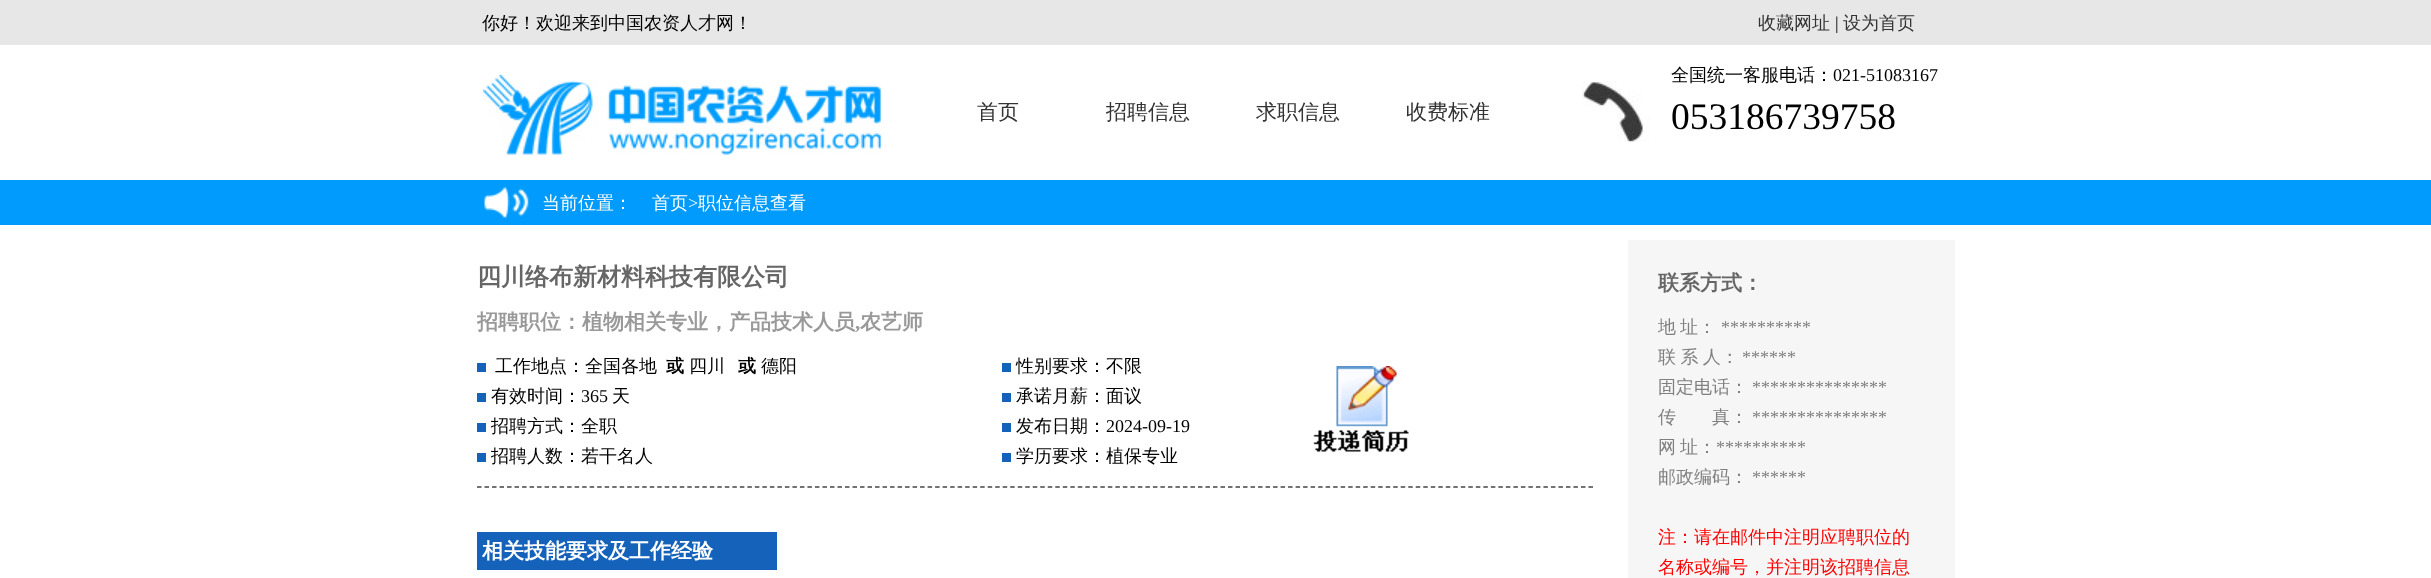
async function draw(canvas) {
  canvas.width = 2431
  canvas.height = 578
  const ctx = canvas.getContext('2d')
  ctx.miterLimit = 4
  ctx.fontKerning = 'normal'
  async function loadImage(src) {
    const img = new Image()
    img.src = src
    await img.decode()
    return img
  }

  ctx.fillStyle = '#fff'
  ctx.fillRect(0, 0, 2431, 578)
  ctx.fillStyle = '#e7e7e7'
  ctx.fillRect(0, 0, 2431, 45)
  ctx.font = '500 18px WenQuanYi Zen Hei'
  ctx.fillStyle = '#000'
  ctx.fillText('你好！欢迎来到中国农资人才网！', 482, 29)
  ctx.fillStyle = '#333'
  ctx.fillText('收藏网址', 1758, 29)
  ctx.font = '18px Liberation Serif'
  ctx.fillStyle = '#000'
  ctx.fillText('|', 1835, 29)
  ctx.font = '500 18px WenQuanYi Zen Hei'
  ctx.fillStyle = '#333'
  ctx.fillText('设为首页', 1843, 29)
  ctx.drawImage(await loadImage('image0.png'), 482, 74, 399, 81)
  ctx.font = '500 21px WenQuanYi Zen Hei'
  ctx.fillText('首页', 977, 119)
  ctx.fillText('招聘信息', 1106, 119)
  ctx.fillText('求职信息', 1256, 119)
  ctx.fillText('收费标准', 1406, 119)
  ctx.drawImage(await loadImage('image1.png'), 1582, 81, 68, 61)
  ctx.font = '500 18px WenQuanYi Zen Hei'
  ctx.fillStyle = '#000'
  ctx.fillText('全国统一客服电话：', 1671, 81)
  ctx.font = '18px Liberation Serif'
  ctx.fillText('021-51083167', 1833, 81)
  ctx.font = '37.5px Liberation Serif'
  ctx.fillText('053186739758', 1671, 129)
  ctx.fillStyle = '#009bfc'
  ctx.fillRect(0, 180, 2431, 45)
  ctx.drawImage(await loadImage('image2.png'), 484, 187, 45, 31)
  ctx.font = '500 18px WenQuanYi Zen Hei'
  ctx.fillStyle = '#fff'
  ctx.fillText('当前位置：', 542, 209)
  ctx.fillText('首页', 652, 209)
  ctx.font = '18px Liberation Serif'
  ctx.fillText('>', 688, 209)
  ctx.font = '500 18px WenQuanYi Zen Hei'
  ctx.fillText('职位信息查看', 698, 209)
  ctx.font = 'bold 24px WenQuanYi Zen Hei'
  ctx.fillStyle = '#666'
  ctx.fillText('四川络布新材料科技有限公司', 477, 285)
  ctx.font = 'bold 21px WenQuanYi Zen Hei'
  ctx.fillStyle = '#999'
  ctx.fillText('招聘职位：植物相关专业，产品技术人员', 477, 329)
  ctx.font = 'bold 21px Liberation Serif'
  ctx.fillText(',', 855, 329)
  ctx.font = 'bold 21px WenQuanYi Zen Hei'
  ctx.fillText('农艺师', 860, 329)
  ctx.fillStyle = '#1562ba'
  ctx.fillRect(477, 363, 9, 9)
  ctx.font = '500 18px WenQuanYi Zen Hei'
  ctx.fillStyle = '#000'
  ctx.fillText('工作地点：全国各地', 495, 372)
  ctx.font = 'bold 18px WenQuanYi Zen Hei'
  ctx.fillText('或', 666, 372)
  ctx.font = '500 18px WenQuanYi Zen Hei'
  ctx.fillText('四川', 689, 372)
  ctx.font = 'bold 18px WenQuanYi Zen Hei'
  ctx.fillText('或', 738, 372)
  ctx.font = '500 18px WenQuanYi Zen Hei'
  ctx.fillText('德阳', 761, 372)
  ctx.fillStyle = '#1562ba'
  ctx.fillRect(477, 393, 9, 9)
  ctx.fillStyle = '#000'
  ctx.fillText('有效时间：', 491, 402)
  ctx.font = '18px Liberation Serif'
  ctx.fillText('365', 581, 402)
  ctx.font = '500 18px WenQuanYi Zen Hei'
  ctx.fillText('天', 612, 402)
  ctx.fillStyle = '#1562ba'
  ctx.fillRect(477, 423, 9, 9)
  ctx.fillStyle = '#000'
  ctx.fillText('招聘方式：全职', 491, 432)
  ctx.fillStyle = '#1562ba'
  ctx.fillRect(477, 453, 9, 9)
  ctx.fillStyle = '#000'
  ctx.fillText('招聘人数：若干名人', 491, 462)
  ctx.fillStyle = '#1562ba'
  ctx.fillRect(1002, 363, 9, 9)
  ctx.fillStyle = '#000'
  ctx.fillText('性别要求：不限', 1016, 372)
  ctx.drawImage(await loadImage('image3.png'), 1313, 366, 96, 86)
  ctx.fillStyle = '#1562ba'
  ctx.fillRect(1002, 393, 9, 9)
  ctx.fillStyle = '#000'
  ctx.fillText('承诺月薪：面议', 1016, 402)
  ctx.fillStyle = '#1562ba'
  ctx.fillRect(1002, 423, 9, 9)
  ctx.fillStyle = '#000'
  ctx.fillText('发布日期：', 1016, 432)
  ctx.font = '18px Liberation Serif'
  ctx.fillText('2024-09-19', 1106, 432)
  ctx.fillStyle = '#1562ba'
  ctx.fillRect(1002, 453, 9, 9)
  ctx.font = '500 18px WenQuanYi Zen Hei'
  ctx.fillStyle = '#000'
  ctx.fillText('学历要求：植保专业', 1016, 462)
  ctx.beginPath()
  ctx.moveTo(477, 487)
  ctx.lineTo(1593, 487)
  ctx.strokeStyle = '#464646'
  ctx.lineWidth = 1.5
  ctx.setLineDash([4.5, 3.01])
  ctx.stroke()
  ctx.fillStyle = '#1562ba'
  ctx.fillRect(477, 532, 300, 38)
  ctx.font = 'bold 21px WenQuanYi Zen Hei'
  ctx.fillStyle = '#fff'
  ctx.fillText('相关技能要求及工作经验', 482, 558)
  ctx.fillStyle = '#f6f6f6'
  ctx.fillRect(1628, 240, 327, 338)
  ctx.fillStyle = '#666'
  ctx.fillText('联系方式：', 1658, 290)
  ctx.font = '500 18px WenQuanYi Zen Hei'
  ctx.fillStyle = '#808080'
  ctx.fillText('地', 1658, 333)
  ctx.fillText('址：', 1680, 333)
  ctx.font = '18px Liberation Serif'
  ctx.fillText('**********', 1721, 333)
  ctx.wordSpacing = '-1px'
  ctx.font = '500 18px WenQuanYi Zen Hei'
  ctx.fillText('联 系 人：', 1658, 363)
  ctx.wordSpacing = '0px'
  ctx.font = '18px Liberation Serif'
  ctx.fillText('******', 1742, 363)
  ctx.font = '500 18px WenQuanYi Zen Hei'
  ctx.fillText('固定电话：', 1658, 393)
  ctx.font = '18px Liberation Serif'
  ctx.fillText('***************', 1752, 393)
  ctx.font = '500 18px WenQuanYi Zen Hei'
  ctx.fillText('传　　真：', 1658, 423)
  ctx.font = '18px Liberation Serif'
  ctx.fillText('***************', 1752, 423)
  ctx.font = '500 18px WenQuanYi Zen Hei'
  ctx.fillText('网', 1658, 453)
  ctx.fillText('址：', 1680, 453)
  ctx.font = '18px Liberation Serif'
  ctx.fillText('**********', 1716, 453)
  ctx.font = '500 18px WenQuanYi Zen Hei'
  ctx.fillText('邮政编码：', 1658, 483)
  ctx.font = '18px Liberation Serif'
  ctx.fillText('******', 1752, 483)
  ctx.font = '500 18px WenQuanYi Zen Hei'
  ctx.fillStyle = '#f00'
  ctx.fillText('注：请在邮件中注明应聘职位的', 1658, 543)
  ctx.fillText('名称或编号，并注明该招聘信息', 1658, 573)
}

draw(document.querySelector('canvas'))
